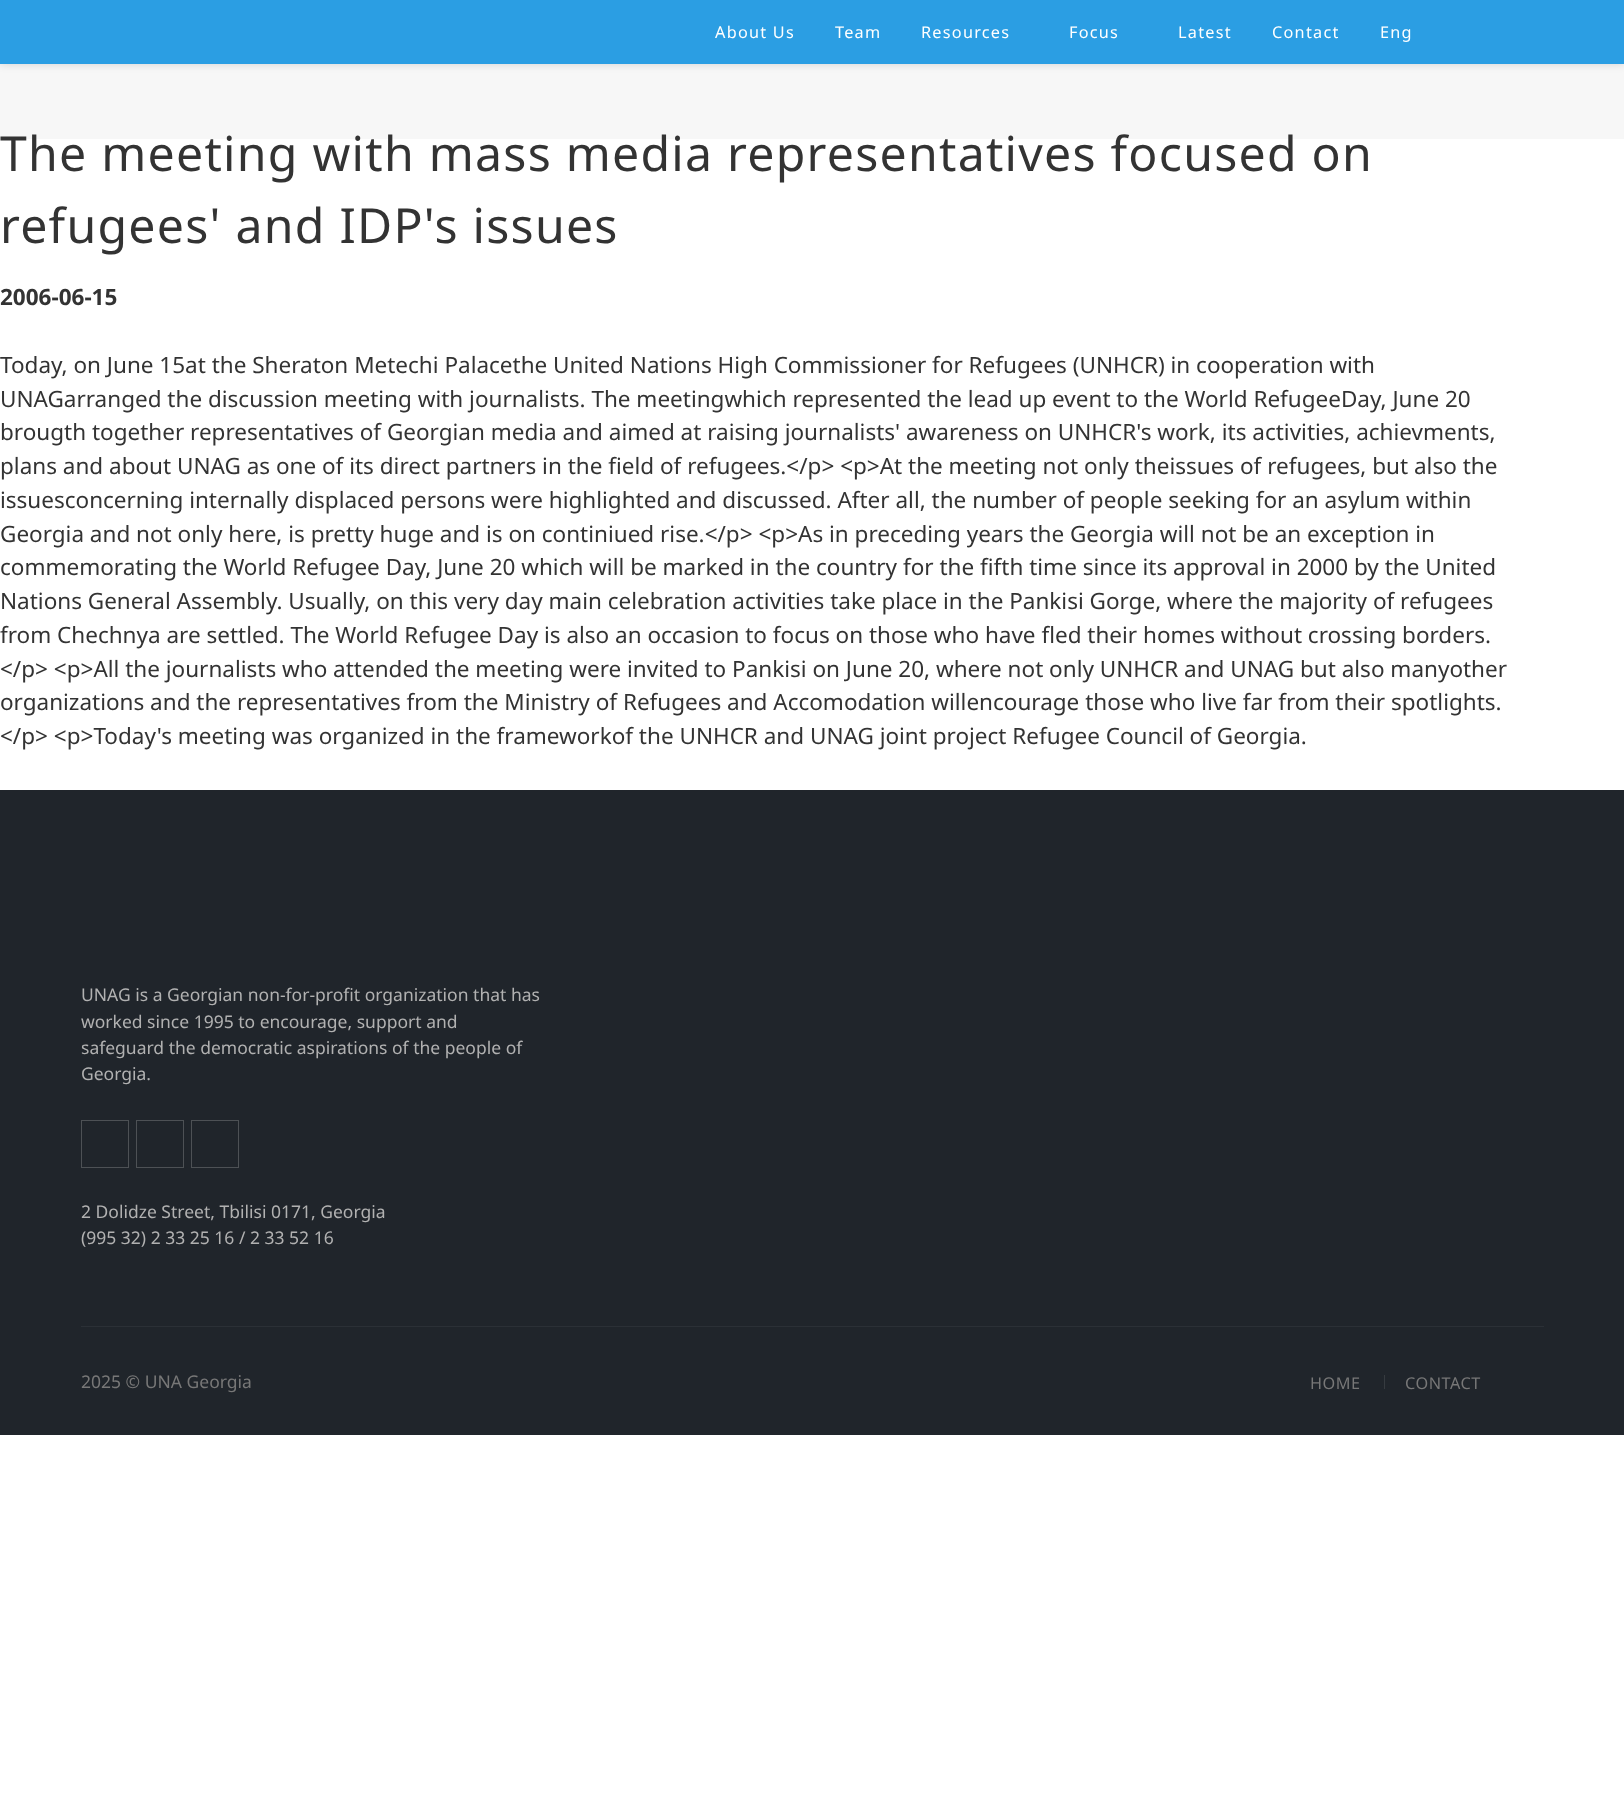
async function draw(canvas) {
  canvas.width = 1624
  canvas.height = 1807
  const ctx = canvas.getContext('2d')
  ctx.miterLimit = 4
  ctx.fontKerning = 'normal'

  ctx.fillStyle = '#fff'
  ctx.fillRect(0, 0, 1624, 1807)
  ctx.fillStyle = '#f7f7f7'
  ctx.fillRect(0, 64, 1624, 75)
  ctx.fillStyle = '#00000026'
  ctx.filter = 'blur(4.5px)'
  ctx.beginPath()
  ctx.rect(0, 0, 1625, 64)
  ctx.fill()
  ctx.filter = 'none'
  ctx.fillStyle = '#2b9ee3'
  ctx.fillRect(0, 0, 1624, 64)
  ctx.letterSpacing = '1.25px'
  ctx.font = '16.25px Noto Sans'
  ctx.fillStyle = '#fff'
  ctx.fillText('About Us', 715, 38)
  ctx.fillText('Team', 835, 38)
  ctx.fillText('Resources', 921, 38)
  ctx.fillText('Focus', 1069, 38)
  ctx.fillText('Latest', 1178, 38)
  ctx.fillText('Contact', 1272, 38)
  ctx.fillText('Eng', 1380, 38)
  ctx.font = '48.2px Noto Sans'
  ctx.fillStyle = '#333'
  ctx.fillText('The meeting with mass media representatives focused on', 0, 171)
  ctx.fillText('refugees\' and IDP\'s issues', 0, 243)
  ctx.letterSpacing = '0px'
  ctx.font = 'bold 22.5px Noto Sans'
  ctx.fillText('2006-06-15', 0, 305)
  ctx.font = '22.5px Noto Sans'
  ctx.fillText('Today, on June 15at the Sheraton Metechi Palacethe United Nations High Commissioner for Refugees (UNHCR) in cooperation with', 0, 373)
  ctx.fillText('UNAGarranged the discussion meeting with journalists. The meetingwhich represented the lead up event to the World RefugeeDay, June 20', 0, 407)
  ctx.fillText('brougth together representatives of Georgian media and aimed at raising journalists\' awareness on UNHCR\'s work, its activities, achievments,', 0, 440)
  ctx.fillText('plans and about UNAG as one of its direct partners in the field of refugees.<\/p> <p>At the meeting not only theissues of refugees, but also the', 0, 474)
  ctx.fillText('issuesconcerning internally displaced persons were highlighted and discussed. After all, the number of people seeking for an asylum within', 0, 508)
  ctx.fillText('Georgia and not only here, is pretty huge and is on continiued rise.<\/p> <p>As in preceding years the Georgia will not be an exception in', 0, 542)
  ctx.fillText('commemorating the World Refugee Day, June 20 which will be marked in the country for the fifth time since its approval in 2000 by the United', 0, 575)
  ctx.fillText('Nations General Assembly. Usually, on this very day main celebration activities take place in the Pankisi Gorge, where the majority of refugees', 0, 609)
  ctx.fillText('from Chechnya are settled. The World Refugee Day is also an occasion to focus on those who have fled their homes without crossing borders.', 0, 643)
  ctx.fillText('<\/p> <p>All the journalists who attended the meeting were invited to Pankisi on June 20, where not only UNHCR and UNAG but also manyother', 0, 677)
  ctx.fillText('organizations and the representatives from the Ministry of Refugees and Accomodation willencourage those who live far from their spotlights.', 0, 710)
  ctx.fillText('<\/p> <p>Today\'s meeting was organized in the frameworkof the UNHCR and UNAG joint project Refugee Council of Georgia.', 0, 744)
  ctx.fillStyle = '#20252b'
  ctx.fillRect(0, 790, 1624, 645)
  ctx.font = '17.5px Noto Sans'
  ctx.fillStyle = '#b1b1b1'
  ctx.fillText('UNAG is a Georgian non-for-profit organization that has', 81, 1001)
  ctx.fillText('worked since 1995 to encourage, support and', 81, 1028)
  ctx.fillText('safeguard the democratic aspirations of the people of', 81, 1054)
  ctx.fillText('Georgia.', 81, 1080)
  ctx.strokeStyle = '#4d5155'
  ctx.strokeRect(81.5, 1120.5, 47, 47)
  ctx.strokeRect(136.5, 1120.5, 47, 47)
  ctx.strokeRect(191.5, 1120.5, 47, 47)
  ctx.fillText('2 Dolidze Street, Tbilisi 0171, Georgia', 81, 1218)
  ctx.fillText('(995 32) 2 33 25 16 / 2 33 52 16', 81, 1244)
  ctx.fillStyle = '#2b3036'
  ctx.fillRect(81, 1326, 1463, 1)
  ctx.fillStyle = '#777'
  ctx.fillText('2025 © UNA Georgia', 81, 1388)
  ctx.letterSpacing = '0.5px'
  ctx.font = '16.25px Noto Sans'
  ctx.fillText('HOME', 1310, 1389)
  ctx.fillStyle = '#363b40'
  ctx.fillRect(1384, 1375, 1, 14)
  ctx.fillStyle = '#777'
  ctx.fillText('CONTACT', 1405, 1389)
}

draw(document.querySelector('canvas'))
